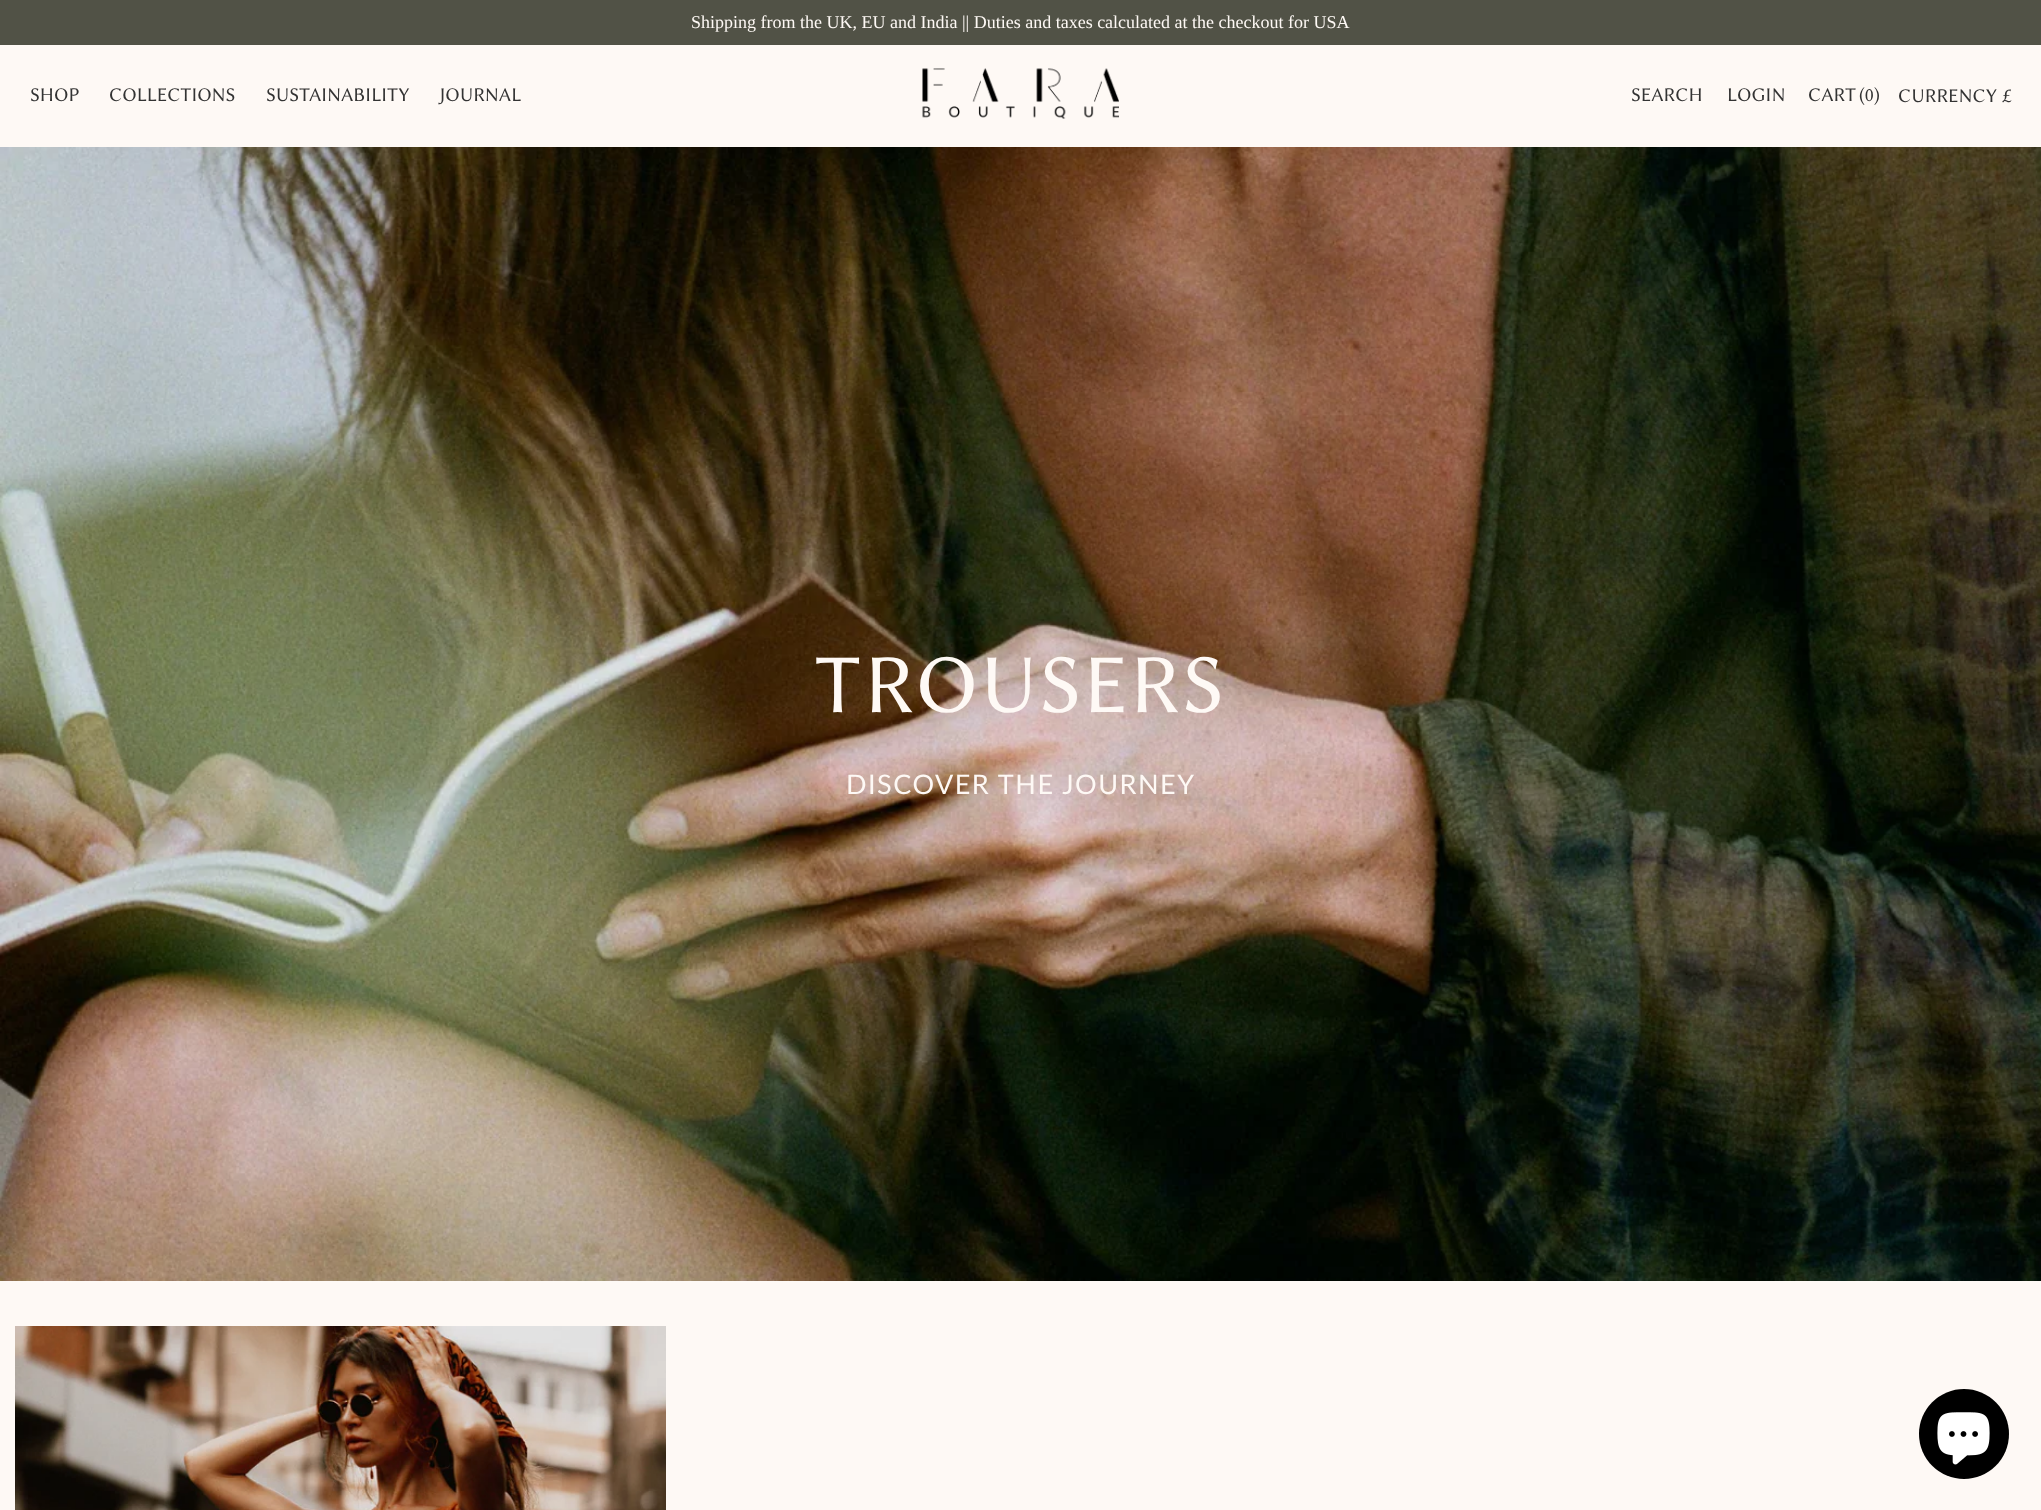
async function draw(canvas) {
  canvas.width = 2041
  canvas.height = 1510
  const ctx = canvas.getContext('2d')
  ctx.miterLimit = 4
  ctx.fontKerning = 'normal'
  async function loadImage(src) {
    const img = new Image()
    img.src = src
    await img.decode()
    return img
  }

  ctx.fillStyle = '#fef9f5'
  ctx.fillRect(0, 0, 2041, 1510)
  ctx.fillStyle = '#515246'
  ctx.fillRect(0, 0, 2041, 45)
  ctx.font = '18px Liberation Serif'
  ctx.fillStyle = '#fef9f5'
  ctx.fillText('Shipping from the UK, EU and India || Duties and taxes calculated at the checkout for USA', 691, 28)
  ctx.font = '19.5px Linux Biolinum'
  ctx.fillStyle = '#333'
  ctx.fillText('SHOP', 30, 101)
  ctx.fillText('COLLECTIONS', 109, 101)
  ctx.fillText('SUSTAINABILITY', 266, 101)
  ctx.fillText('JOURNAL', 439, 101)
  ctx.drawImage(await loadImage('image0.png'), 922, 68, 197, 51)
  ctx.fillText('SEARCH', 1631, 101)
  ctx.fillText('LOGIN', 1727, 101)
  ctx.fillText('CART', 1808, 101)
  ctx.fillText('(0)', 1859, 101)
  ctx.fillText('CURRENCY £', 1898, 102)
  ctx.drawImage(await loadImage('image1.png'), 0, 147, 2041, 1134)
  ctx.letterSpacing = '1.5px'
  ctx.font = '84px Linux Biolinum'
  ctx.fillStyle = '#fef9f5'
  ctx.fillText('TROUSERS', 815, 712)
  ctx.font = '27px Lato'
  ctx.fillText('DISCOVER THE JOURNEY', 846, 794)
  ctx.drawImage(await loadImage('image2.png'), 15, 1326, 651, 184)
  ctx.fillStyle = '#000'
  ctx.beginPath()
  ctx.arc(1964, 1434, 45, 0, 2 * Math.PI)
  ctx.fill()
  ctx.drawImage(await loadImage('image3.png'), 1937, 1412, 53, 53)
}

draw(document.querySelector('canvas'))
